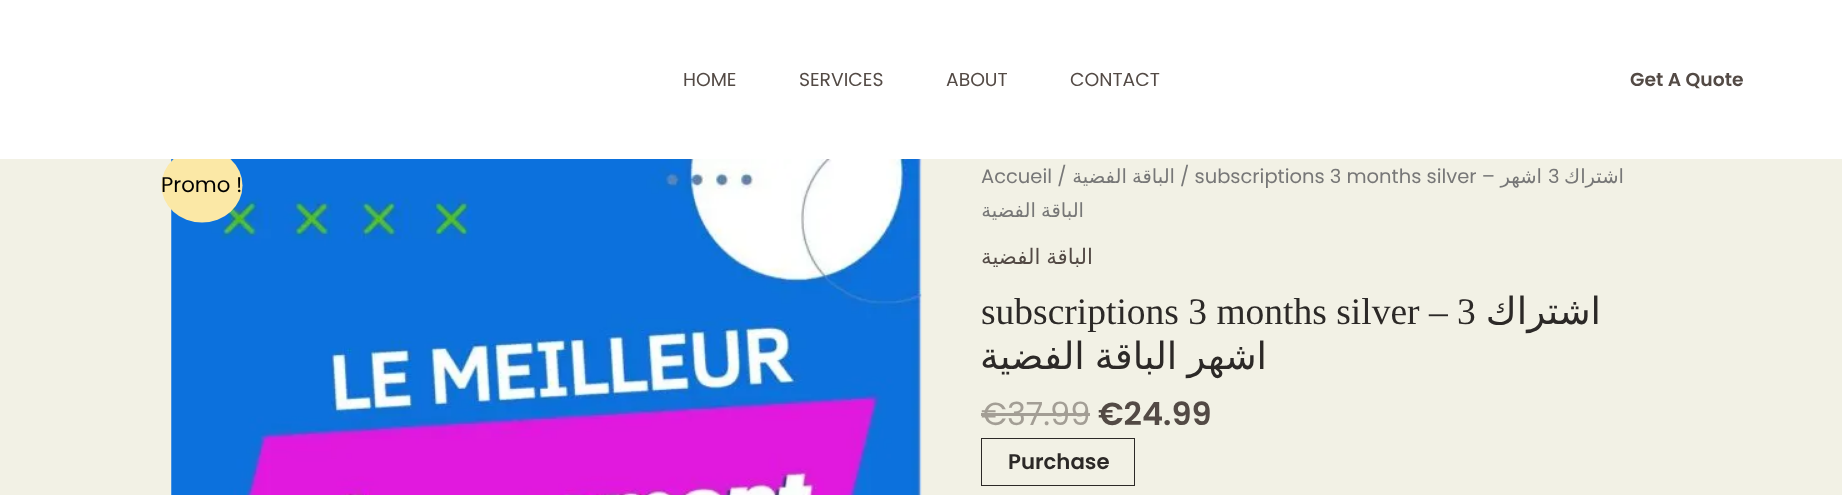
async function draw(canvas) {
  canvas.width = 1842
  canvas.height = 495
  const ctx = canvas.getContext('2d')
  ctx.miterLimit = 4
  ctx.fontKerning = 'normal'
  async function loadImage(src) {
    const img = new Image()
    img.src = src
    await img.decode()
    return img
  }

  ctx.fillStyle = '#f2f1e5'
  ctx.fillRect(0, 0, 1842, 495)
  ctx.drawImage(await loadImage('image0.png'), 171, 159, 751, 336)
  ctx.fillStyle = '#fbe8a6'
  ctx.beginPath()
  ctx.ellipse(202, 185.5, 40.5, 37, 0, 0, 2 * Math.PI)
  ctx.fill()
  ctx.fillStyle = '#fff'
  ctx.fillRect(0, 0, 1842, 159)
  ctx.font = '18.75px Poppins'
  ctx.fillStyle = '#534a45'
  ctx.fillText('HOME', 683, 86)
  ctx.fillText('SERVICES', 799, 86)
  ctx.fillText('ABOUT', 946, 86)
  ctx.fillText('CONTACT', 1070, 86)
  ctx.font = '600 18.75px Poppins'
  ctx.fillText('Get A Quote', 1630, 86)
  ctx.font = '19.5px Poppins'
  ctx.fillStyle = '#777'
  ctx.fillText('Accueil /', 981, 183)
  ctx.wordSpacing = '-1px'
  ctx.direction = 'rtl'
  ctx.font = '19.5px DejaVu Sans'
  ctx.fillText('الباقة الفضية', 1175, 183)
  ctx.wordSpacing = '0px'
  ctx.direction = 'ltr'
  ctx.font = '19.5px Poppins'
  ctx.fillText('/ subscriptions 3 months silver –', 1180, 183)
  ctx.direction = 'rtl'
  ctx.font = '19.5px DejaVu Sans'
  ctx.fillText('اشهر', 1542, 183)
  ctx.direction = 'ltr'
  ctx.font = '19.5px Poppins'
  ctx.fillText('3', 1548, 183)
  ctx.direction = 'rtl'
  ctx.font = '19.5px DejaVu Sans'
  ctx.fillText('اشتراك', 1624, 183)
  ctx.wordSpacing = '-1px'
  ctx.fillText('الباقة الفضية', 1084, 217)
  ctx.font = '21.25px DejaVu Sans'
  ctx.fillStyle = '#534a45'
  ctx.fillText('الباقة الفضية', 1093, 264)
  ctx.wordSpacing = '0px'
  ctx.direction = 'ltr'
  ctx.font = '37.5px Liberation Serif'
  ctx.fillStyle = '#2c2927'
  ctx.fillText('subscriptions 3 months silver – 3', 981, 324)
  ctx.direction = 'rtl'
  ctx.font = '37.5px DejaVu Sans'
  ctx.fillText('اشتراك', 1601, 324)
  ctx.wordSpacing = '-2px'
  ctx.fillText('اشهر الباقة الفضية', 1267, 369)
  ctx.wordSpacing = '0px'
  ctx.direction = 'ltr'
  ctx.font = '32px Poppins'
  ctx.fillStyle = '#a39e95'
  ctx.fillText('€37.99', 981, 425)
  ctx.fillRect(981, 413, 109, 3)
  ctx.font = '600 32px Poppins'
  ctx.fillStyle = '#534a45'
  ctx.fillText('€24.99', 1098, 425)
  ctx.strokeStyle = '#2c2927'
  ctx.strokeRect(981.5, 438.5, 153, 47)
  ctx.font = '600 21.25px Poppins'
  ctx.fillStyle = '#2c2927'
  ctx.fillText('Purchase', 1008, 469)
  ctx.font = '21.25px Poppins'
  ctx.fillStyle = '#000'
  ctx.fillText('Promo !', 161, 192)
}

draw(document.querySelector('canvas'))
